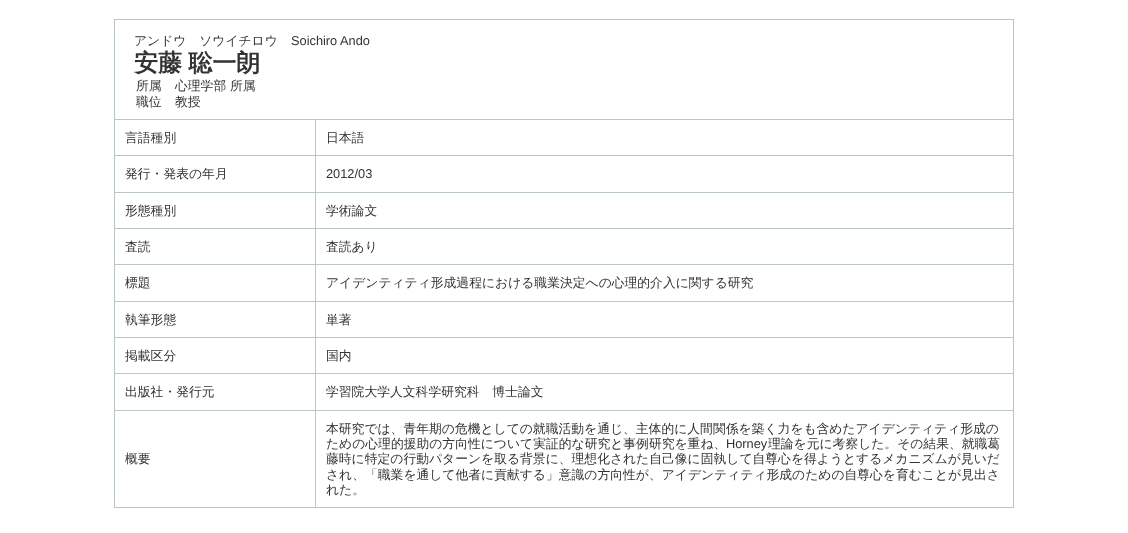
async function draw(canvas) {
  canvas.width = 1128
  canvas.height = 533
  const ctx = canvas.getContext('2d')
  ctx.miterLimit = 4
  ctx.fontKerning = 'normal'

  ctx.fillStyle = '#fff'
  ctx.fillRect(0, 0, 1128, 533)
  ctx.fillStyle = '#bbc6c7'
  ctx.fillRect(114, 19, 900, 489)
  ctx.fillStyle = '#fff'
  ctx.fillRect(115, 20, 898, 99)
  ctx.font = '500 12.8px WenQuanYi Zen Hei'
  ctx.fillStyle = '#333'
  ctx.fillText('アンドウ　ソウイチロウ', 134, 45)
  ctx.font = '12.8px Liberation Sans'
  ctx.fillText('Soichiro Ando', 291, 45)
  ctx.wordSpacing = '-1px'
  ctx.font = 'bold 24px WenQuanYi Zen Hei'
  ctx.fillText('安藤 聡一朗', 134, 71)
  ctx.wordSpacing = '0px'
  ctx.font = '500 12.8px WenQuanYi Zen Hei'
  ctx.fillText('所属', 136, 90)
  ctx.fillText('心理学部 所属', 175, 90)
  ctx.fillText('職位', 136, 106)
  ctx.fillText('教授', 175, 106)
  ctx.fillStyle = '#fff'
  ctx.fillRect(115, 120, 200, 35)
  ctx.fillStyle = '#333'
  ctx.fillText('言語種別', 125, 142)
  ctx.fillStyle = '#fff'
  ctx.fillRect(316, 120, 697, 35)
  ctx.fillStyle = '#333'
  ctx.fillText('日本語', 326, 142)
  ctx.fillStyle = '#fff'
  ctx.fillRect(115, 156, 200, 36)
  ctx.fillStyle = '#333'
  ctx.fillText('発行・発表の年月', 125, 178)
  ctx.fillStyle = '#fff'
  ctx.fillRect(316, 156, 697, 36)
  ctx.font = '12.8px Liberation Sans'
  ctx.fillStyle = '#333'
  ctx.fillText('2012/03', 326, 178)
  ctx.fillStyle = '#fff'
  ctx.fillRect(115, 193, 200, 35)
  ctx.font = '500 12.8px WenQuanYi Zen Hei'
  ctx.fillStyle = '#333'
  ctx.fillText('形態種別', 125, 215)
  ctx.fillStyle = '#fff'
  ctx.fillRect(316, 193, 697, 35)
  ctx.fillStyle = '#333'
  ctx.fillText('学術論文', 326, 215)
  ctx.fillStyle = '#fff'
  ctx.fillRect(115, 229, 200, 35)
  ctx.fillStyle = '#333'
  ctx.fillText('査読', 125, 251)
  ctx.fillStyle = '#fff'
  ctx.fillRect(316, 229, 697, 35)
  ctx.fillStyle = '#333'
  ctx.fillText('査読あり', 326, 251)
  ctx.fillStyle = '#fff'
  ctx.fillRect(115, 265, 200, 36)
  ctx.fillStyle = '#333'
  ctx.fillText('標題', 125, 287)
  ctx.fillStyle = '#fff'
  ctx.fillRect(316, 265, 697, 36)
  ctx.fillStyle = '#333'
  ctx.fillText('アイデンティティ形成過程における職業決定への心理的介入に関する研究', 326, 287)
  ctx.fillStyle = '#fff'
  ctx.fillRect(115, 302, 200, 35)
  ctx.fillStyle = '#333'
  ctx.fillText('執筆形態', 125, 324)
  ctx.fillStyle = '#fff'
  ctx.fillRect(316, 302, 697, 35)
  ctx.fillStyle = '#333'
  ctx.fillText('単著', 326, 324)
  ctx.fillStyle = '#fff'
  ctx.fillRect(115, 338, 200, 35)
  ctx.fillStyle = '#333'
  ctx.fillText('掲載区分', 125, 360)
  ctx.fillStyle = '#fff'
  ctx.fillRect(316, 338, 697, 35)
  ctx.fillStyle = '#333'
  ctx.fillText('国内', 326, 360)
  ctx.fillStyle = '#fff'
  ctx.fillRect(115, 374, 200, 36)
  ctx.fillStyle = '#333'
  ctx.fillText('出版社・発行元', 125, 396)
  ctx.fillStyle = '#fff'
  ctx.fillRect(316, 374, 697, 36)
  ctx.fillStyle = '#333'
  ctx.fillText('学習院大学人文科学研究科　博士論文', 326, 396)
  ctx.fillStyle = '#fff'
  ctx.fillRect(115, 411, 200, 96)
  ctx.fillStyle = '#333'
  ctx.fillText('概要', 125, 463)
  ctx.fillStyle = '#fff'
  ctx.fillRect(316, 411, 697, 96)
  ctx.fillStyle = '#333'
  ctx.fillText('本研究では、青年期の危機としての就職活動を通じ、主体的に人間関係を築く力をも含めたアイデンティティ形成の', 326, 433)
  ctx.fillText('ための心理的援助の方向性について実証的な研究と事例研究を重ね、', 326, 448)
  ctx.font = '12.8px Liberation Sans'
  ctx.fillText('Horney', 726, 448)
  ctx.font = '500 12.8px WenQuanYi Zen Hei'
  ctx.fillText('理論を元に考察した。その結果、就職葛', 768, 448)
  ctx.fillText('藤時に特定の行動パターンを取る背景に、理想化された自己像に固執して自尊心を得ようとするメカニズムが見いだ', 326, 463)
  ctx.fillText('され、「職業を通して他者に貢献する」意識の方向性が、アイデンティティ形成のための自尊心を育むことが見出さ', 326, 479)
  ctx.fillText('れた。', 326, 494)
}

draw(document.querySelector('canvas'))
